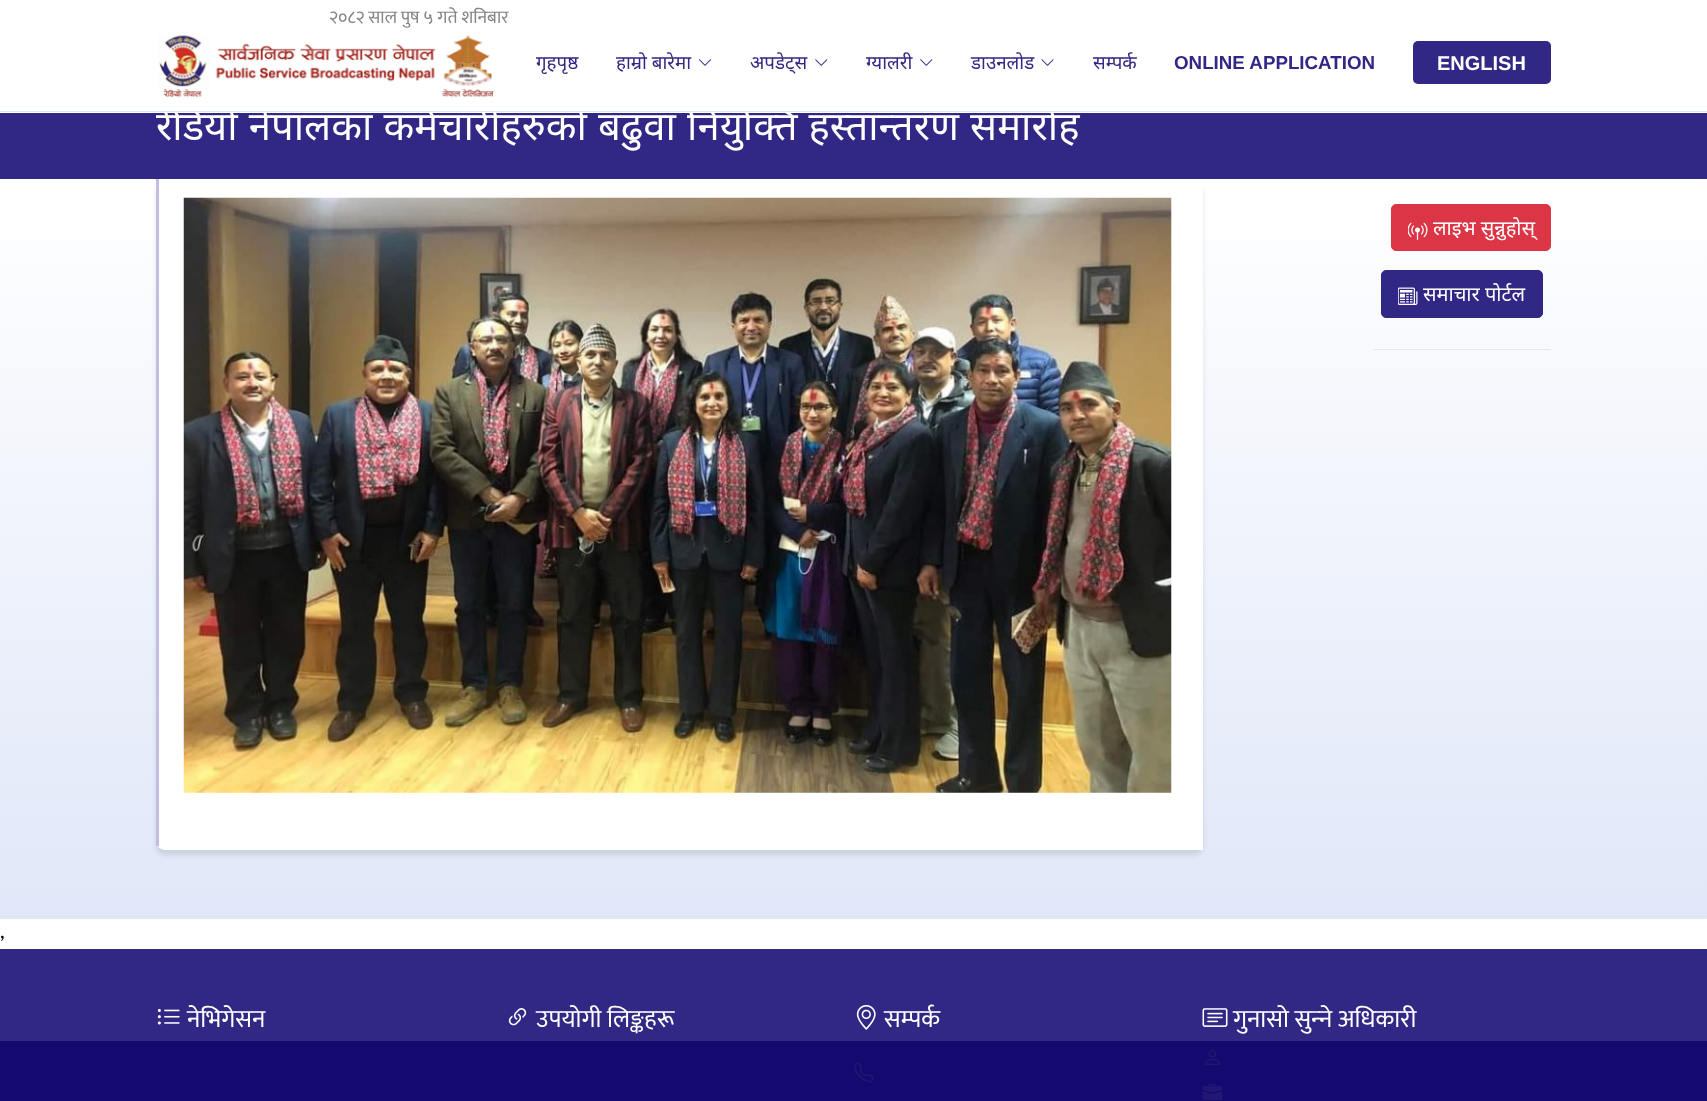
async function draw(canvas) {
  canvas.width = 1707
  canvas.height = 1101
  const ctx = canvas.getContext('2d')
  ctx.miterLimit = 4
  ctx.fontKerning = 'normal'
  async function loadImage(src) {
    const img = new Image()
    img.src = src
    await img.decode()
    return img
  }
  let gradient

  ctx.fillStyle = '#fff'
  ctx.fillRect(0, 0, 1707, 1101)
  ctx.fillStyle = '#312784'
  ctx.fillRect(0, 113, 1707, 66)
  ctx.wordSpacing = '0.75px'
  ctx.font = '40px Noto Sans'
  ctx.fillStyle = '#fff'
  ctx.fillText('रेडियो नेपालका कर्मचारीहरुको बढुवा नियुक्ति हस्तान्तरण समारोह', 156, 140)
  ctx.fillStyle = '#e0e7f8'
  ctx.fillRect(0, 111, 1707, 1)
  ctx.wordSpacing = '0px'
  ctx.font = '18px Mukta'
  ctx.fillStyle = '#848484'
  ctx.fillText('२०८२ साल पुष ५ गते शनिबार', 329, 23)
  ctx.drawImage(await loadImage('image0.png'), 158, 34, 336, 64)
  ctx.font = '18.75px Noto Sans'
  ctx.fillStyle = '#312784'
  ctx.fillText('गृहपृष्ठ', 536, 69)
  ctx.fillText('हाम्रो बारेमा', 616, 69)
  ctx.drawImage(await loadImage('image1.png'), 698, 59, 14, 7)
  ctx.fillText('अपडेट्स', 750, 69)
  ctx.drawImage(await loadImage('image2.png'), 815, 59, 13, 7)
  ctx.fillText('ग्यालरी', 866, 69)
  ctx.drawImage(await loadImage('image2.png'), 920, 59, 13, 7)
  ctx.fillText('डाउनलोड', 971, 69)
  ctx.drawImage(await loadImage('image3.png'), 1041, 59, 13, 7)
  ctx.fillText('सम्पर्क', 1093, 69)
  ctx.font = 'bold 18.75px Liberation Sans'
  ctx.fillText('ONLINE APPLICATION', 1174, 69)
  ctx.beginPath()
  ctx.roundRect(1413, 41, 138, 43, 5)
  ctx.fill()
  ctx.font = 'bold 20px Liberation Sans'
  ctx.fillStyle = '#fff'
  ctx.fillText('ENGLISH', 1437, 70)
  gradient = ctx.createLinearGradient(854, 179, 854, 919)
  gradient.addColorStop(0, '#fff')
  gradient.addColorStop(1, '#e0e7f8')
  ctx.fillStyle = gradient
  ctx.fillRect(0, 239, 1707, 680)
  ctx.fillStyle = '#0000001a'
  ctx.filter = 'blur(2.5px)'
  ctx.beginPath()
  ctx.roundRect(156, 184, 1047, 671, 9)
  ctx.fill()
  ctx.filter = 'none'
  ctx.fillStyle = '#fff'
  ctx.beginPath()
  ctx.roundRect(156, 179, 1047, 671, [0, 0, 0, 9])
  ctx.fill()
  ctx.fillStyle = '#c2bee3'
  ctx.fillRect(156, 179, 3, 667)
  ctx.drawImage(await loadImage('image4.png'), 183, 197, 989, 596)
  ctx.fillStyle = '#dc3545'
  ctx.beginPath()
  ctx.roundRect(1391.5, 204.5, 159, 46, 4.5)
  ctx.fill()
  ctx.strokeStyle = '#dc3545'
  ctx.stroke()
  ctx.drawImage(await loadImage('image5.png'), 1408, 222, 20, 18)
  ctx.font = '20px Noto Sans'
  ctx.fillStyle = '#fff'
  ctx.fillText('लाइभ सुन्नुहोस्', 1433, 235)
  ctx.fillStyle = '#312784'
  ctx.beginPath()
  ctx.roundRect(1381.5, 270.5, 161, 47, 4.5)
  ctx.fill()
  ctx.strokeStyle = '#312784'
  ctx.stroke()
  ctx.drawImage(await loadImage('image6.png'), 1398, 287, 20, 18)
  ctx.fillStyle = '#fff'
  ctx.fillText('समाचार पोर्टल', 1423, 301)
  ctx.fillStyle = '#e8e8e8'
  ctx.fillRect(1373, 349, 178, 1)
  ctx.font = '20px Mukta'
  ctx.fillStyle = '#000'
  ctx.fillText(',', 0, 938)
  ctx.fillStyle = '#312784'
  ctx.fillRect(0, 949, 1707, 92)
  ctx.fillStyle = '#14096e'
  ctx.fillRect(0, 1041, 1707, 60)
  ctx.drawImage(await loadImage('image7.png'), 157, 1008, 23, 17)
  ctx.font = '25px Mukta'
  ctx.fillStyle = '#fff'
  ctx.fillText('नेभिगेसन', 187, 1027)
  ctx.drawImage(await loadImage('image8.png'), 508, 1008, 19, 18)
  ctx.fillText('उपयोगी लिङ्कहरू', 536, 1027)
  ctx.drawImage(await loadImage('image9.png'), 856, 1005, 20, 25)
  ctx.fillText('सम्पर्क', 884, 1027)
  ctx.drawImage(await loadImage('image10.png'), 853, 1062, 21, 21)
  ctx.drawImage(await loadImage('image11.png'), 1202, 1008, 26, 19)
  ctx.fillText('गुनासो सुन्‍ने अधिकारी', 1233, 1027)
  ctx.drawImage(await loadImage('image12.png'), 1205, 1050, 15, 15)
  ctx.drawImage(await loadImage('image13.png'), 1202, 1083, 21, 18)
}

draw(document.querySelector('canvas'))
